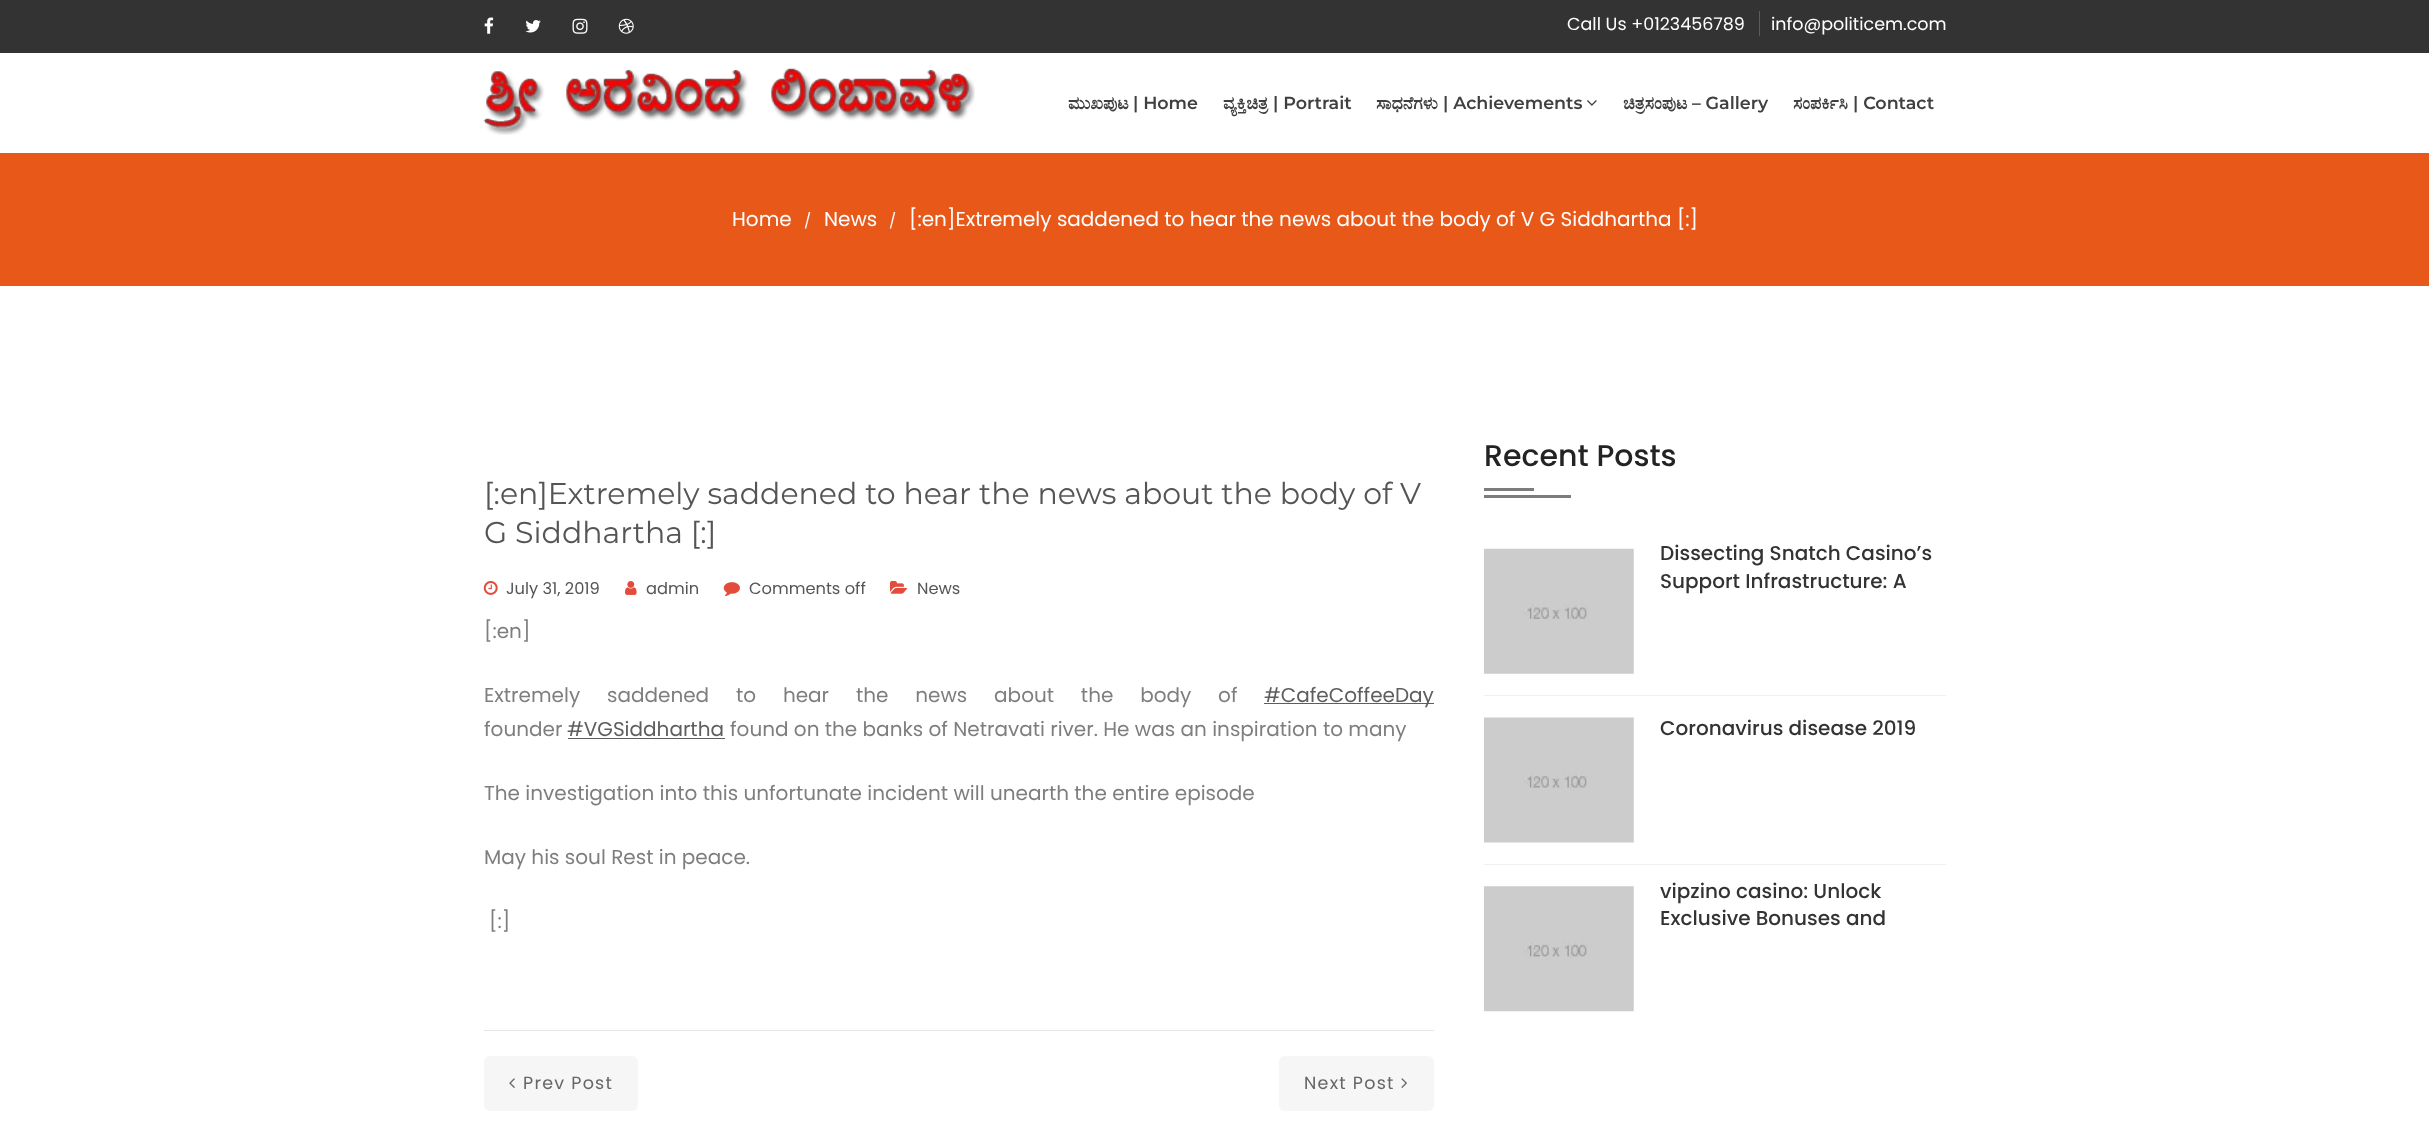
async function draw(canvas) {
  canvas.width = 2429
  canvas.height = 1129
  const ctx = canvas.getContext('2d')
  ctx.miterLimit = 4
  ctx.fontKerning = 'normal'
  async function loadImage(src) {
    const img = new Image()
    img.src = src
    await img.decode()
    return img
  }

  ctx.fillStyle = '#fff'
  ctx.fillRect(0, 0, 2429, 1129)
  ctx.fillStyle = '#333'
  ctx.fillRect(0, 0, 2429, 53)
  ctx.drawImage(await loadImage('image0.png'), 484, 17, 10, 17)
  ctx.drawImage(await loadImage('image1.png'), 525, 20, 16, 13)
  ctx.drawImage(await loadImage('image2.png'), 572, 18, 16, 16)
  ctx.drawImage(await loadImage('image3.png'), 618, 18, 16, 16)
  ctx.font = '17.5px Poppins'
  ctx.fillStyle = '#fff'
  ctx.fillText('Call Us +0123456789', 1567, 30)
  ctx.fillStyle = '#5c5c5c'
  ctx.fillRect(1759, 11, 1, 25)
  ctx.fillStyle = '#fff'
  ctx.fillText('info@politicem.com', 1771, 30)
  ctx.drawImage(await loadImage('image4.png'), 483, 68, 492, 67)
  ctx.font = 'bold 17.5px FreeSerif'
  ctx.fillStyle = '#404040'
  ctx.fillText('ಮುಖಪುಟ', 1068, 109)
  ctx.font = '600 17.5px Montserrat'
  ctx.fillText('| Home', 1133, 109)
  ctx.font = 'bold 17.5px FreeSerif'
  ctx.fillText('ವ್ಯಕ್ತಿಚಿತ್ರ', 1223, 109)
  ctx.font = '600 17.5px Montserrat'
  ctx.fillText('| Portrait', 1273, 109)
  ctx.font = 'bold 17.5px FreeSerif'
  ctx.fillText('ಸಾಧನೆಗಳು', 1376, 109)
  ctx.font = '600 17.5px Montserrat'
  ctx.fillText('| Achievements', 1443, 109)
  ctx.drawImage(await loadImage('image5.png'), 1587, 100, 10, 6)
  ctx.font = 'bold 17.5px FreeSerif'
  ctx.fillText('ಚಿತ್ರಸಂಪುಟ', 1623, 109)
  ctx.font = '600 17.5px Montserrat'
  ctx.fillText('– Gallery', 1692, 109)
  ctx.font = 'bold 17.5px FreeSerif'
  ctx.fillText('ಸಂಪರ್ಕಿಸಿ', 1793, 109)
  ctx.font = '600 17.5px Montserrat'
  ctx.fillText('| Contact', 1853, 109)
  ctx.fillStyle = '#e85819'
  ctx.fillRect(0, 153, 2429, 133)
  ctx.font = '20px Poppins'
  ctx.fillStyle = '#fff'
  ctx.fillText('Home', 732, 226)
  ctx.font = '15px Poppins'
  ctx.fillText('/', 804, 226)
  ctx.font = '20px Poppins'
  ctx.fillText('News', 824, 226)
  ctx.font = '15px Poppins'
  ctx.fillText('/', 889, 226)
  ctx.font = '20px Poppins'
  ctx.fillText('[:en]Extremely saddened to hear the news about the body of V G Siddhartha [:]', 909, 226)
  ctx.font = '30px Montserrat'
  ctx.fillStyle = '#555'
  ctx.fillText('[:en]Extremely saddened to hear the news about the body of V', 484, 504)
  ctx.fillText('G Siddhartha [:]', 484, 543)
  ctx.drawImage(await loadImage('image6.png'), 483, 581, 15, 14)
  ctx.font = '16.25px Poppins'
  ctx.fillText('July 31, 2019', 506, 594)
  ctx.drawImage(await loadImage('image7.png'), 625, 581, 12, 14)
  ctx.fillText('admin', 646, 594)
  ctx.drawImage(await loadImage('image8.png'), 723, 582, 17, 14)
  ctx.fillText('Comments off', 749, 594)
  ctx.drawImage(await loadImage('image9.png'), 890, 581, 17, 13)
  ctx.fillText('News', 917, 594)
  ctx.font = '20px Poppins'
  ctx.fillStyle = '#7e7e7e'
  ctx.fillText('[:en]', 484, 638)
  ctx.wordSpacing = '21.5px'
  ctx.fillText('Extremely saddened to hear the news about the body of', 484, 702)
  ctx.fillStyle = '#5e5e5e'
  ctx.fillRect(1264, 703, 170, 1)
  ctx.wordSpacing = '0px'
  ctx.fillText('#CafeCoffeeDay', 1264, 702)
  ctx.fillStyle = '#7e7e7e'
  ctx.fillText('founder', 484, 736)
  ctx.fillStyle = '#5e5e5e'
  ctx.fillText('#VGSiddhartha', 567, 736)
  ctx.fillRect(568, 738, 157, 1)
  ctx.fillStyle = '#7e7e7e'
  ctx.fillText('found on the banks of Netravati river. He was an inspiration to many', 730, 736)
  ctx.fillText('The investigation into this unfortunate incident will unearth the entire episode', 484, 800)
  ctx.fillText('May his soul Rest in peace.', 484, 864)
  ctx.fillText('[:]', 489, 928)
  ctx.fillStyle = '#e7e7e7'
  ctx.fillRect(484, 1030, 950, 1)
  ctx.fillStyle = '#f6f6f6'
  ctx.beginPath()
  ctx.roundRect(484, 1056, 154, 55, 6)
  ctx.fill()
  ctx.drawImage(await loadImage('image10.png'), 509, 1078, 6, 10)
  ctx.letterSpacing = '1.25px'
  ctx.font = '17.5px Poppins'
  ctx.fillStyle = '#666'
  ctx.fillText('Prev Post', 523, 1089)
  ctx.fillStyle = '#f6f6f6'
  ctx.beginPath()
  ctx.roundRect(1279, 1056, 155, 55, 6)
  ctx.fill()
  ctx.fillStyle = '#666'
  ctx.fillText('Next Post', 1304, 1089)
  ctx.drawImage(await loadImage('image11.png'), 1401, 1078, 6, 10)
  ctx.letterSpacing = '0px'
  ctx.font = '500 30px Poppins'
  ctx.fillStyle = '#232323'
  ctx.fillText('Recent Posts', 1484, 466)
  ctx.fillStyle = '#7c7c7c'
  ctx.fillRect(1484, 488, 50, 3)
  ctx.fillRect(1484, 495, 87, 3)
  ctx.fillStyle = '#f1f1f1'
  ctx.fillRect(1484, 695, 462, 1)
  ctx.drawImage(await loadImage('image12.png'), 1484, 548, 150, 126)
  ctx.font = '500 20px Poppins'
  ctx.fillStyle = '#333'
  ctx.fillText('Dissecting Snatch Casino’s', 1660, 560)
  ctx.fillText('Support Infrastructure: A', 1660, 588)
  ctx.fillStyle = '#f1f1f1'
  ctx.fillRect(1484, 864, 462, 1)
  ctx.drawImage(await loadImage('image13.png'), 1484, 717, 150, 126)
  ctx.fillStyle = '#333'
  ctx.fillText('Coronavirus disease 2019', 1660, 735)
  ctx.drawImage(await loadImage('image14.png'), 1484, 886, 150, 126)
  ctx.fillText('vipzino casino: Unlock', 1660, 898)
  ctx.fillText('Exclusive Bonuses and', 1660, 925)
}

draw(document.querySelector('canvas'))
